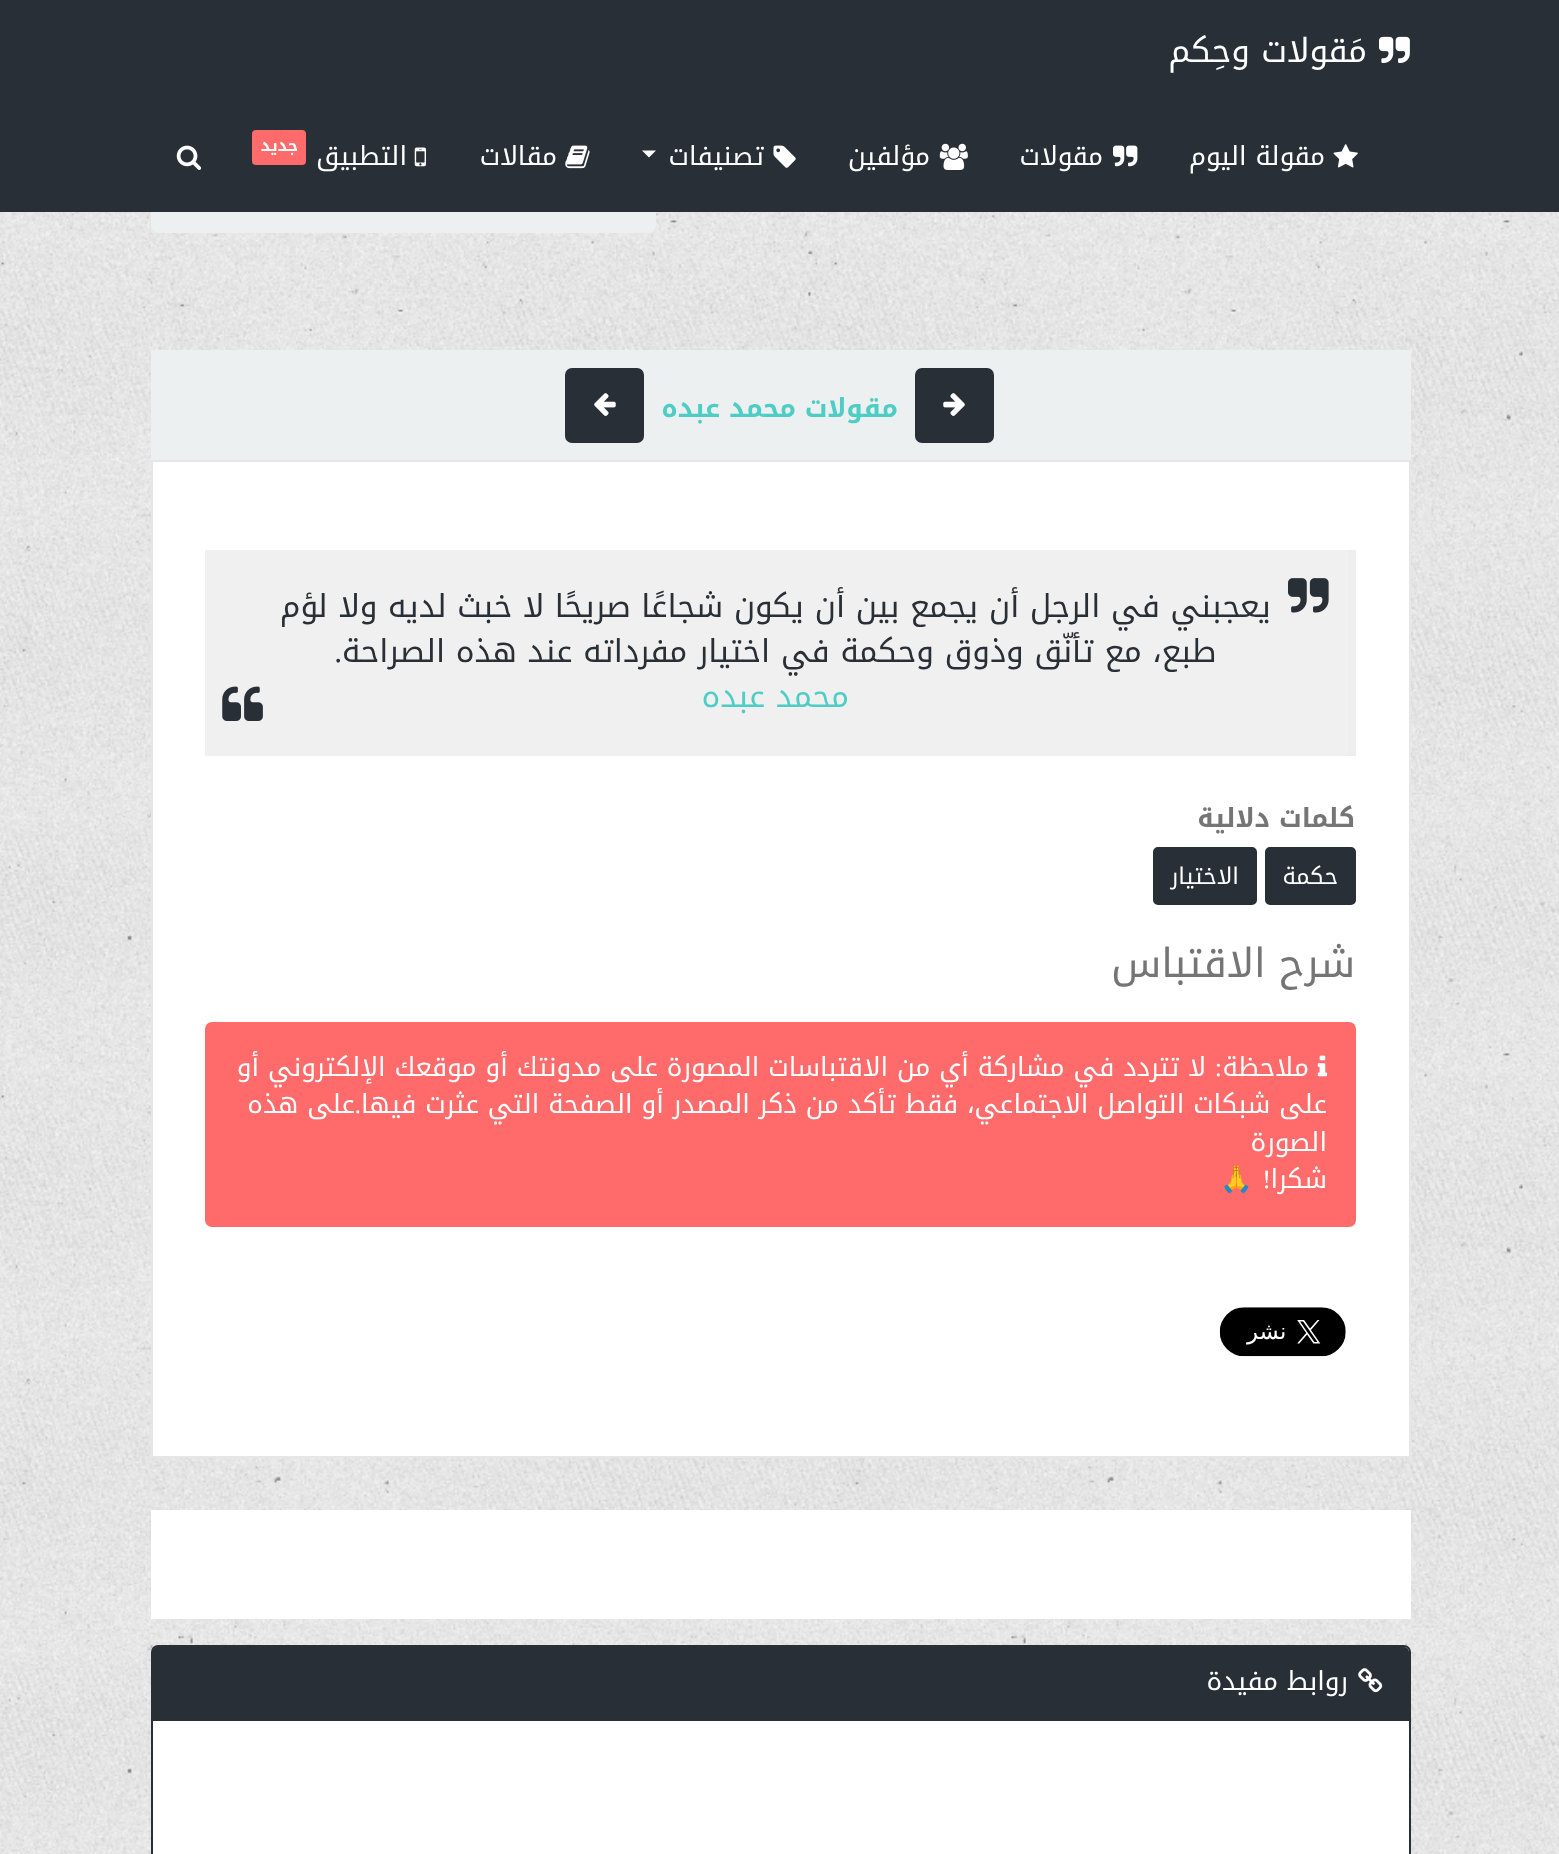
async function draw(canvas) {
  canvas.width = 1559
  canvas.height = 1854
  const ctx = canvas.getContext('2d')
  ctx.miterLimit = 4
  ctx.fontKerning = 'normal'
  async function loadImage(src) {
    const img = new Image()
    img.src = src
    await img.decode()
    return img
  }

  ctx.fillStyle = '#fff'
  ctx.fillRect(0, 0, 1559, 1854)
  ctx.drawImage(await loadImage('image0.png'), 0, 212, 1559, 1642)
  ctx.fillStyle = '#ecf0f1'
  ctx.beginPath()
  ctx.roundRect(151, 168, 505, 65, 7)
  ctx.fill()
  ctx.fillStyle = '#292f36'
  ctx.fillRect(0, 0, 1559, 212)
  ctx.drawImage(await loadImage('image1.png'), 1379, 36, 31, 27)
  ctx.direction = 'rtl'
  ctx.font = '33.25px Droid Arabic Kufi'
  ctx.fillStyle = '#fff'
  ctx.fillText('مَقولات وحِكم', 1367, 62)
  ctx.drawImage(await loadImage('image2.png'), 1333, 144, 25, 24)
  ctx.font = '26.25px Droid Arabic Kufi'
  ctx.fillText('مقولة اليوم', 1325, 165)
  ctx.drawImage(await loadImage('image3.png'), 1113, 145, 25, 22)
  ctx.fillText('مقولات', 1103, 165)
  ctx.drawImage(await loadImage('image4.png'), 939, 143, 29, 27)
  ctx.fillText('مؤلفين', 930, 165)
  ctx.drawImage(await loadImage('image5.png'), 773, 145, 23, 23)
  ctx.fillText('تصنيفات', 764, 165)
  ctx.beginPath()
  ctx.moveTo(642, 150.5)
  ctx.lineTo(656, 150.5)
  ctx.lineTo(649, 157.5)
  ctx.closePath()
  ctx.fill()
  ctx.drawImage(await loadImage('image6.png'), 565, 145, 25, 24)
  ctx.fillText('مقالات', 557, 165)
  ctx.drawImage(await loadImage('image7.png'), 414, 147, 12, 20)
  ctx.fillText('التطبيق', 407, 165)
  ctx.fillStyle = '#ff6b6b'
  ctx.beginPath()
  ctx.roundRect(252, 130, 54, 35, 4)
  ctx.fill()
  ctx.font = 'bold 16px Droid Arabic Kufi'
  ctx.fillStyle = '#fff'
  ctx.fillText('جديد', 298, 151)
  ctx.drawImage(await loadImage('image8.png'), 176, 145, 26, 25)
  ctx.fillStyle = '#ecf0f1'
  ctx.fillRect(151, 350, 1260, 110)
  ctx.fillStyle = '#292f36'
  ctx.beginPath()
  ctx.roundRect(916, 369, 77, 73, 6)
  ctx.fill()
  ctx.strokeStyle = '#292f36'
  ctx.lineWidth = 2
  ctx.stroke()
  ctx.drawImage(await loadImage('image9.png'), 943, 393, 22, 23)
  ctx.font = 'bold 26.25px Droid Arabic Kufi'
  ctx.fillStyle = '#4ecdc4'
  ctx.fillText('مقولات محمد عبده', 898, 417)
  ctx.fillStyle = '#292f36'
  ctx.beginPath()
  ctx.roundRect(566, 369, 77, 73, 6)
  ctx.fill()
  ctx.stroke()
  ctx.drawImage(await loadImage('image10.png'), 594, 393, 22, 23)
  ctx.fillStyle = '#fff'
  ctx.beginPath()
  ctx.rect(152, 461, 1258, 996)
  ctx.fill()
  ctx.strokeStyle = '#e6e6e6'
  ctx.stroke()
  ctx.fillStyle = '#f0f0f0'
  ctx.fillRect(205, 550, 1143, 206)
  ctx.fillStyle = '#eee'
  ctx.fillRect(1348, 550, 8, 206)
  ctx.drawImage(await loadImage('image11.png'), 1288, 578, 41, 35)
  ctx.font = '31.5px Droid Arabic Kufi'
  ctx.fillStyle = '#292f36'
  ctx.fillText('يعجبني في الرجل أن يجمع بين أن يكون شجاعًا صريحًا لا خبث لديه ولا لؤم', 1271, 617)
  ctx.fillText('طبع، مع تأنّق وذوق وحكمة في اختيار مفرداته عند هذه الصراحة', 1216, 662)
  ctx.font = '31.5px Liberation Serif'
  ctx.fillText('.', 342, 662)
  ctx.font = '31.5px Droid Arabic Kufi'
  ctx.fillStyle = '#4ecdc4'
  ctx.fillText('محمد عبده', 849, 707)
  ctx.drawImage(await loadImage('image12.png'), 222, 686, 41, 35)
  ctx.font = 'bold 26.25px Droid Arabic Kufi'
  ctx.fillStyle = '#757575'
  ctx.fillText('كلمات دلالية', 1355, 827)
  ctx.fillStyle = '#292f36'
  ctx.beginPath()
  ctx.roundRect(1266, 848, 89, 56, 4)
  ctx.fill()
  ctx.strokeStyle = '#292f36'
  ctx.stroke()
  ctx.font = '23px Droid Arabic Kufi'
  ctx.fillStyle = '#fff'
  ctx.fillText('حكمة', 1338, 884)
  ctx.fillStyle = '#292f36'
  ctx.beginPath()
  ctx.roundRect(1154, 848, 102, 56, 4)
  ctx.fill()
  ctx.stroke()
  ctx.fillStyle = '#fff'
  ctx.fillText('الاختيار', 1239, 884)
  ctx.font = '40.25px Droid Arabic Kufi'
  ctx.fillStyle = '#757575'
  ctx.fillText('شرح الاقتباس', 1355, 977)
  ctx.fillStyle = '#ff6b6b'
  ctx.beginPath()
  ctx.roundRect(206, 1023, 1149, 203, 6)
  ctx.fill()
  ctx.strokeStyle = '#ff6b6b'
  ctx.stroke()
  ctx.drawImage(await loadImage('image13.png'), 1317, 1055, 11, 22)
  ctx.font = '26.25px Droid Arabic Kufi'
  ctx.fillStyle = '#fff'
  ctx.fillText('ملاحظة', 1309, 1076)
  ctx.font = '26.25px Liberation Serif'
  ctx.fillText(':', 1222, 1076)
  ctx.font = '26.25px Droid Arabic Kufi'
  ctx.fillText('لا تتردد في مشاركة أي من الاقتباسات المصورة على مدونتك أو موقعك الإلكتروني أو', 1206, 1076)
  ctx.fillText('على شبكات التواصل الاجتماعي، فقط تأكد من ذكر المصدر أو الصفحة التي عثرت فيها', 1327, 1113)
  ctx.font = '26.25px Liberation Serif'
  ctx.fillText('.', 361, 1113)
  ctx.font = '26.25px Droid Arabic Kufi'
  ctx.fillText('على هذه', 355, 1113)
  ctx.fillText('الصورة', 1327, 1151)
  ctx.fillText('شكرا', 1327, 1188)
  ctx.font = '26.25px Liberation Serif'
  ctx.fillText('!', 1271, 1188)
  ctx.font = '26.25px Noto Color Emoji'
  ctx.fillText('🙏', 1253, 1188)
  ctx.drawImage(await loadImage('image14.png'), 1219, 1307, 127, 50)
  ctx.fillRect(151, 1510, 1260, 109)
  ctx.beginPath()
  ctx.roundRect(152, 1646, 1258, 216, 6)
  ctx.fill()
  ctx.strokeStyle = '#292f36'
  ctx.stroke()
  ctx.fillStyle = '#292f36'
  ctx.beginPath()
  ctx.roundRect(152, 1647, 1257, 73, [5, 5, 0, 0])
  ctx.fill()
  ctx.fillRect(152, 1720, 1257, 1)
  ctx.drawImage(await loadImage('image15.png'), 1358, 1668, 25, 25)
  ctx.font = '26.25px Droid Arabic Kufi'
  ctx.fillStyle = '#fff'
  ctx.fillText('روابط مفيدة', 1348, 1690)
}

draw(document.querySelector('canvas'))
